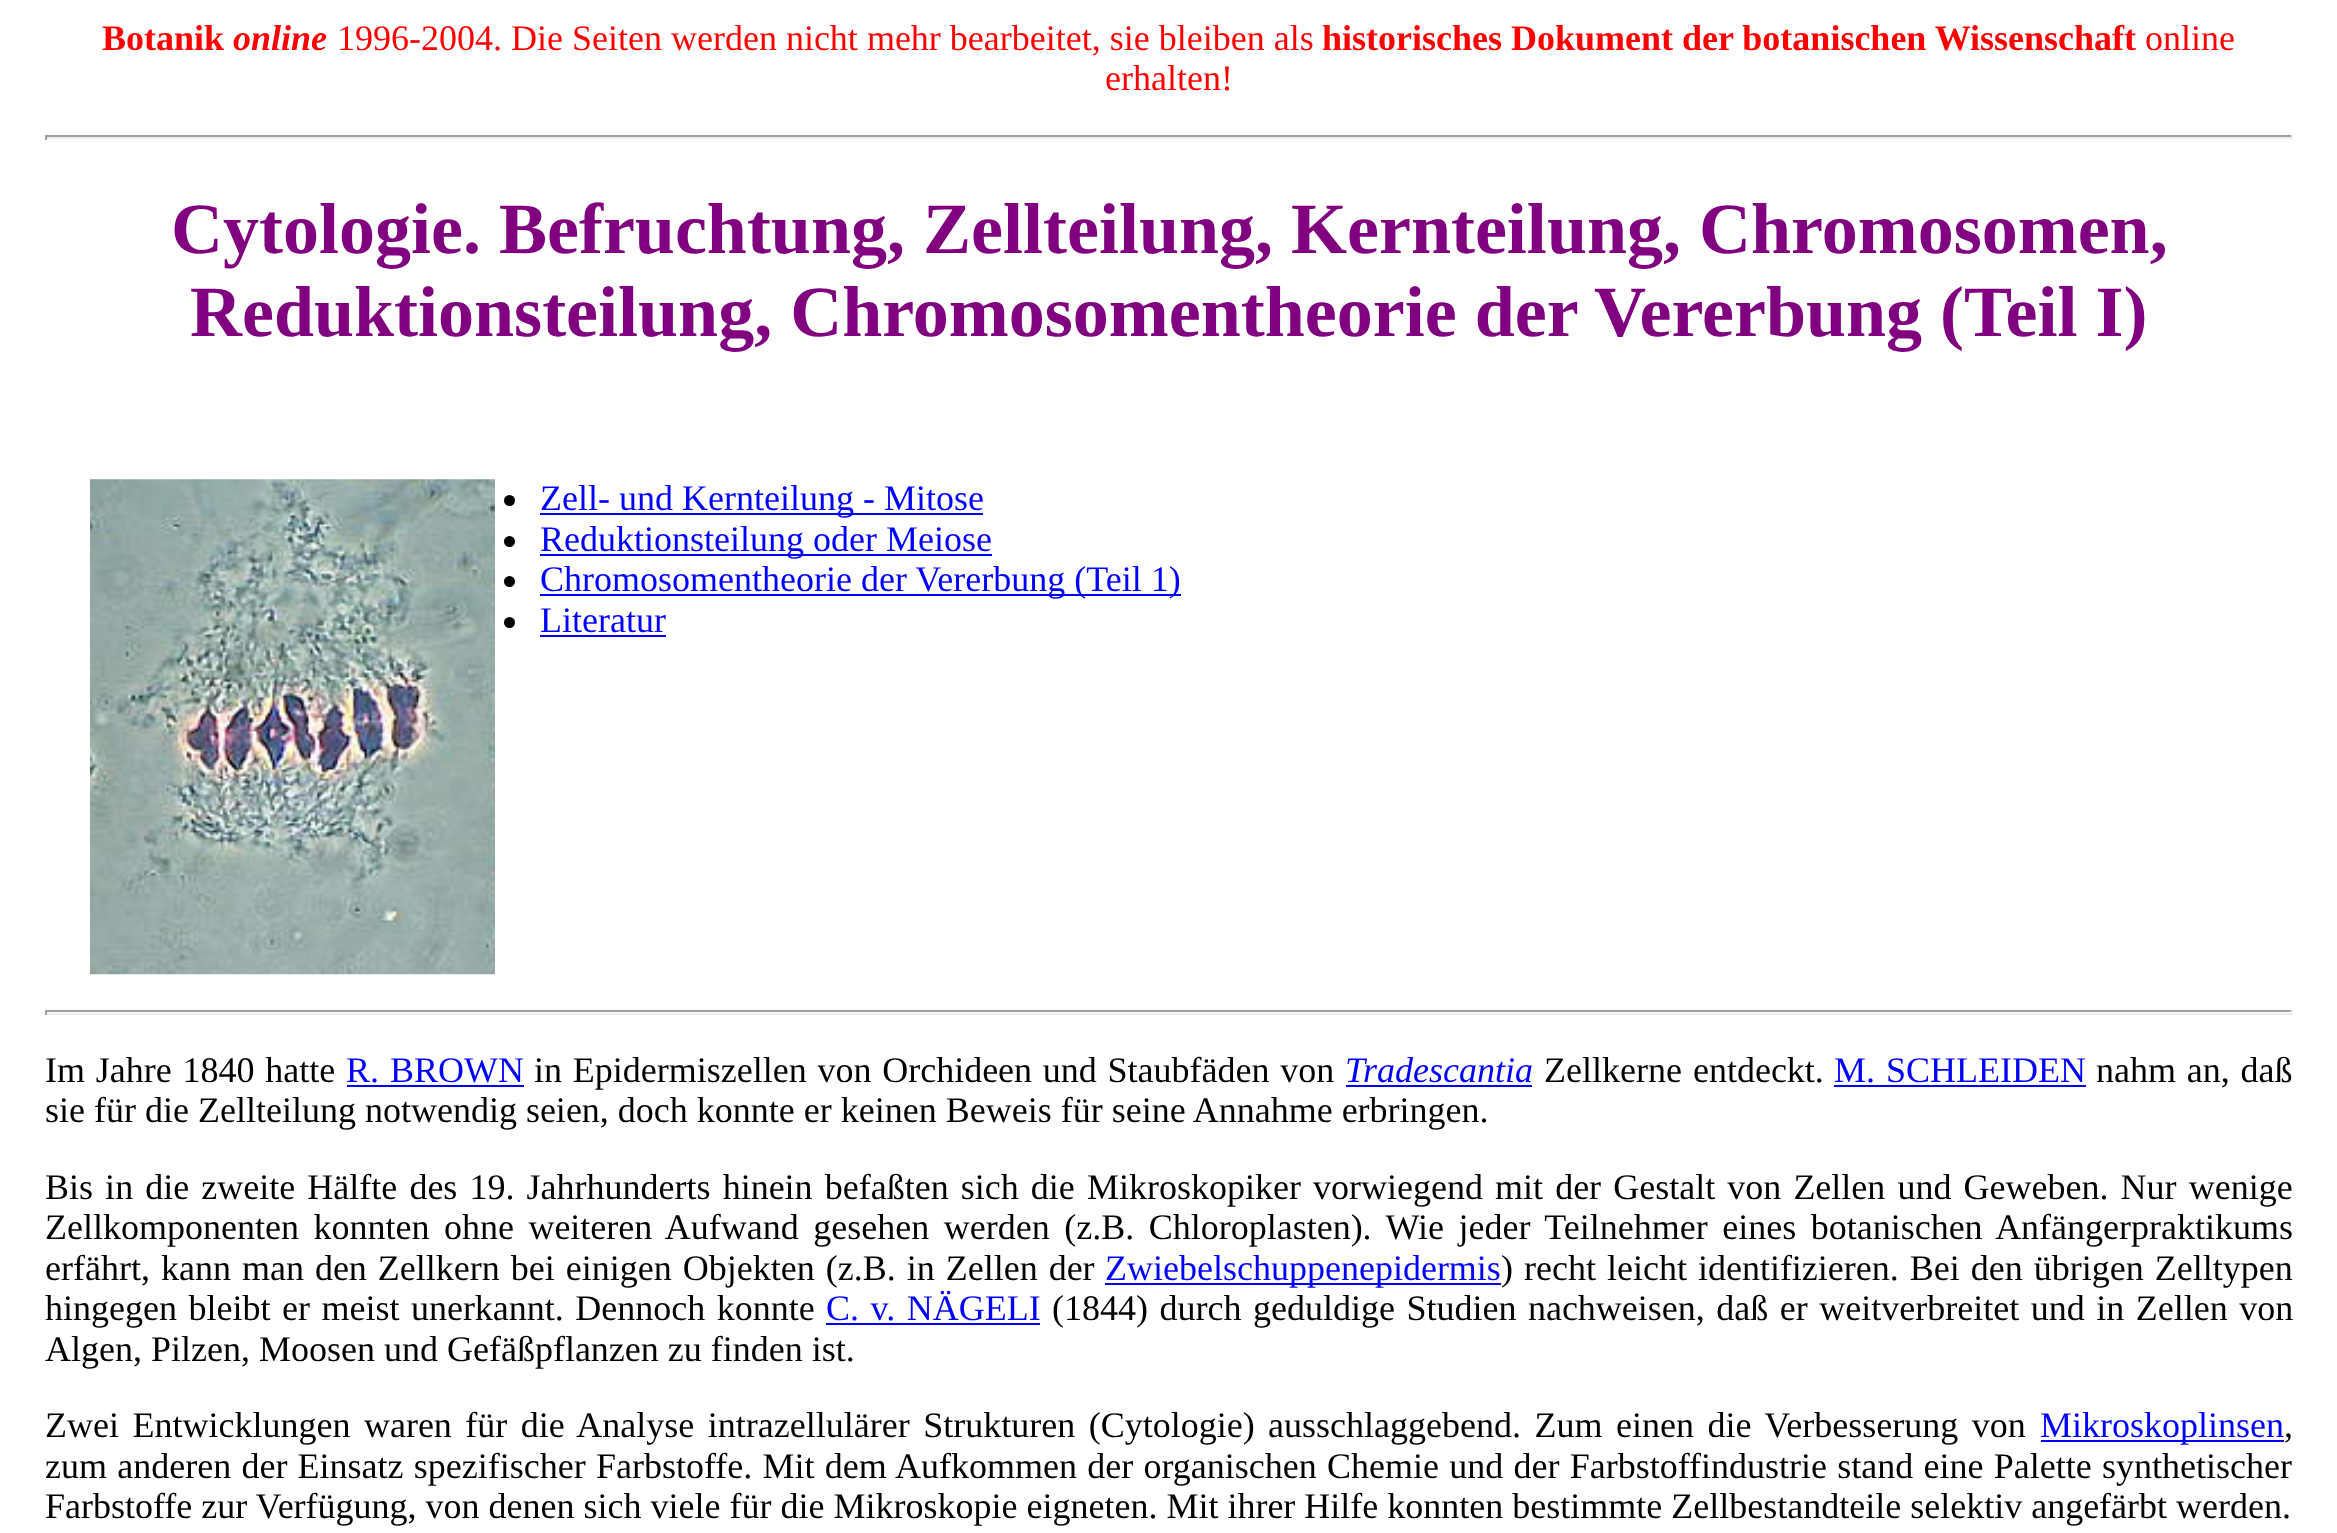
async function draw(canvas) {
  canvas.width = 2337
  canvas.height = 1533
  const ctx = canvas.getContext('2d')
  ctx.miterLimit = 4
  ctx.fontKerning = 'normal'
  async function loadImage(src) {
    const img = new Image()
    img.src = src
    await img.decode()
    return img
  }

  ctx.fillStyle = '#fff'
  ctx.fillRect(0, 0, 2337, 1533)
  ctx.font = 'bold 36px Liberation Serif'
  ctx.fillStyle = '#f00'
  ctx.fillText('Botanik', 102, 50)
  ctx.font = 'italic bold 36px Liberation Serif'
  ctx.fillText('online', 233, 50)
  ctx.font = '36px Liberation Serif'
  ctx.fillText('1996-2004. Die Seiten werden nicht mehr bearbeitet, sie bleiben als', 337, 50)
  ctx.font = 'bold 36px Liberation Serif'
  ctx.fillText('historisches Dokument der botanischen Wissenschaft', 1322, 50)
  ctx.font = '36px Liberation Serif'
  ctx.fillText('online', 2145, 50)
  ctx.fillText('erhalten!', 1105, 90)
  ctx.fillStyle = '#9f9f9f'
  ctx.fillRect(45, 135, 2248, 2)
  ctx.fillStyle = '#eee'
  ctx.fillRect(2291, 135, 2, 5)
  ctx.fillRect(45, 137, 2248, 2)
  ctx.fillStyle = '#9f9f9f'
  ctx.fillRect(45, 135, 2, 5)
  ctx.font = 'bold 72px Liberation Serif'
  ctx.fillStyle = '#800080'
  ctx.fillText('Cytologie. Befruchtung, Zellteilung, Kernteilung, Chromosomen,', 171, 253)
  ctx.fillText('Reduktionsteilung, Chromosomentheorie der Vererbung (Teil I)', 190, 336)
  ctx.drawImage(await loadImage('image0.png'), 90, 479, 405, 496)
  ctx.fillStyle = '#000'
  ctx.beginPath()
  ctx.arc(509.5, 500.5, 5.5, 0, 2 * Math.PI)
  ctx.fill()
  ctx.fillStyle = '#00f'
  ctx.fillRect(540, 513, 443, 2)
  ctx.font = '36px Liberation Serif'
  ctx.fillText('Zell- und Kernteilung - Mitose', 540, 510)
  ctx.fillStyle = '#000'
  ctx.beginPath()
  ctx.arc(509.5, 541.5, 5.5, 0, 2 * Math.PI)
  ctx.fill()
  ctx.fillStyle = '#00f'
  ctx.fillRect(540, 554, 452, 2)
  ctx.fillText('Reduktionsteilung oder Meiose', 540, 551)
  ctx.fillStyle = '#000'
  ctx.beginPath()
  ctx.arc(509.5, 581.5, 5.5, 0, 2 * Math.PI)
  ctx.fill()
  ctx.fillStyle = '#00f'
  ctx.fillRect(540, 594, 641, 2)
  ctx.fillText('Chromosomentheorie der Vererbung (Teil 1)', 540, 591)
  ctx.fillStyle = '#000'
  ctx.beginPath()
  ctx.arc(509.5, 622.5, 5.5, 0, 2 * Math.PI)
  ctx.fill()
  ctx.fillStyle = '#00f'
  ctx.fillText('Literatur', 540, 632)
  ctx.fillRect(540, 635, 126, 2)
  ctx.fillStyle = '#9f9f9f'
  ctx.fillRect(45, 1010, 2248, 2)
  ctx.fillStyle = '#eee'
  ctx.fillRect(2291, 1010, 2, 5)
  ctx.fillRect(45, 1013, 2248, 2)
  ctx.fillStyle = '#9f9f9f'
  ctx.fillRect(45, 1010, 2, 5)
  ctx.wordSpacing = '1.75px'
  ctx.fillStyle = '#000'
  ctx.fillText('Im Jahre 1840 hatte', 45, 1082)
  ctx.wordSpacing = '2px'
  ctx.fillStyle = '#00f'
  ctx.fillText('R. BROWN', 346, 1082)
  ctx.fillRect(347, 1085, 177, 2)
  ctx.wordSpacing = '1.75px'
  ctx.fillStyle = '#000'
  ctx.fillText('in Epidermiszellen von Orchideen und Staubfäden von', 534, 1082)
  ctx.wordSpacing = '0px'
  ctx.font = 'italic 36px Liberation Serif'
  ctx.fillStyle = '#00f'
  ctx.fillText('Tradescantia', 1345, 1082)
  ctx.fillRect(1346, 1085, 186, 2)
  ctx.wordSpacing = '2px'
  ctx.font = '36px Liberation Serif'
  ctx.fillStyle = '#000'
  ctx.fillText('Zellkerne entdeckt.', 1544, 1082)
  ctx.fillStyle = '#00f'
  ctx.fillText('M. SCHLEIDEN', 1834, 1082)
  ctx.fillRect(1834, 1085, 252, 2)
  ctx.wordSpacing = '1.75px'
  ctx.fillStyle = '#000'
  ctx.fillText('nahm an, daß', 2096, 1082)
  ctx.wordSpacing = '0px'
  ctx.fillText('sie für die Zellteilung notwendig seien, doch konnte er keinen Beweis für seine Annahme erbringen.', 45, 1122)
  ctx.wordSpacing = '3.1px'
  ctx.fillText('Bis in die zweite Hälfte des 19. Jahrhunderts hinein befaßten sich die Mikroskopiker vorwiegend mit der Gestalt von Zellen und Geweben. Nur wenige', 45, 1199)
  ctx.wordSpacing = '5.5px'
  ctx.fillText('Zellkomponenten konnten ohne weiteren Aufwand gesehen werden (z.B. Chloroplasten). Wie jeder Teilnehmer eines botanischen Anfängerpraktikums', 45, 1239)
  ctx.wordSpacing = '2px'
  ctx.fillText('erfährt, kann man den Zellkern bei einigen Objekten (z.B. in Zellen der', 45, 1280)
  ctx.fillStyle = '#00f'
  ctx.fillRect(1105, 1283, 396, 2)
  ctx.wordSpacing = '0px'
  ctx.fillText('Zwiebelschuppenepidermis', 1105, 1280)
  ctx.wordSpacing = '2px'
  ctx.fillStyle = '#000'
  ctx.fillText(') recht leicht identifizieren. Bei den übrigen Zelltypen', 1501, 1280)
  ctx.wordSpacing = '2.5px'
  ctx.fillText('hingegen bleibt er meist unerkannt. Dennoch konnte', 45, 1320)
  ctx.fillStyle = '#00f'
  ctx.fillText('C. v. NÄGELI', 826, 1320)
  ctx.fillRect(826, 1323, 214, 2)
  ctx.fillStyle = '#000'
  ctx.fillText('(1844) durch geduldige Studien nachweisen, daß er weitverbreitet und in Zellen von', 1052, 1320)
  ctx.wordSpacing = '0px'
  ctx.fillText('Algen, Pilzen, Moosen und Gefäßpflanzen zu finden ist.', 45, 1361)
  ctx.wordSpacing = '4.5px'
  ctx.fillText('Zwei Entwicklungen waren für die Analyse intrazellulärer Strukturen (Cytologie) ausschlaggebend. Zum einen die Verbesserung von', 45, 1437)
  ctx.fillStyle = '#00f'
  ctx.fillRect(2041, 1440, 243, 2)
  ctx.wordSpacing = '0px'
  ctx.fillText('Mikroskoplinsen', 2040, 1437)
  ctx.fillStyle = '#000'
  ctx.fillText(',', 2284, 1437)
  ctx.wordSpacing = '1.25px'
  ctx.fillText('zum anderen der Einsatz spezifischer Farbstoffe. Mit dem Aufkommen der organischen Chemie und der Farbstoffindustrie stand eine Palette synthetischer', 45, 1478)
  ctx.wordSpacing = '0px'
  ctx.fillText('Farbstoffe zur Verfügung, von denen sich viele für die Mikroskopie eigneten. Mit ihrer Hilfe konnten bestimmte Zellbestandteile selektiv angefärbt werden.', 45, 1518)
}

draw(document.querySelector('canvas'))
